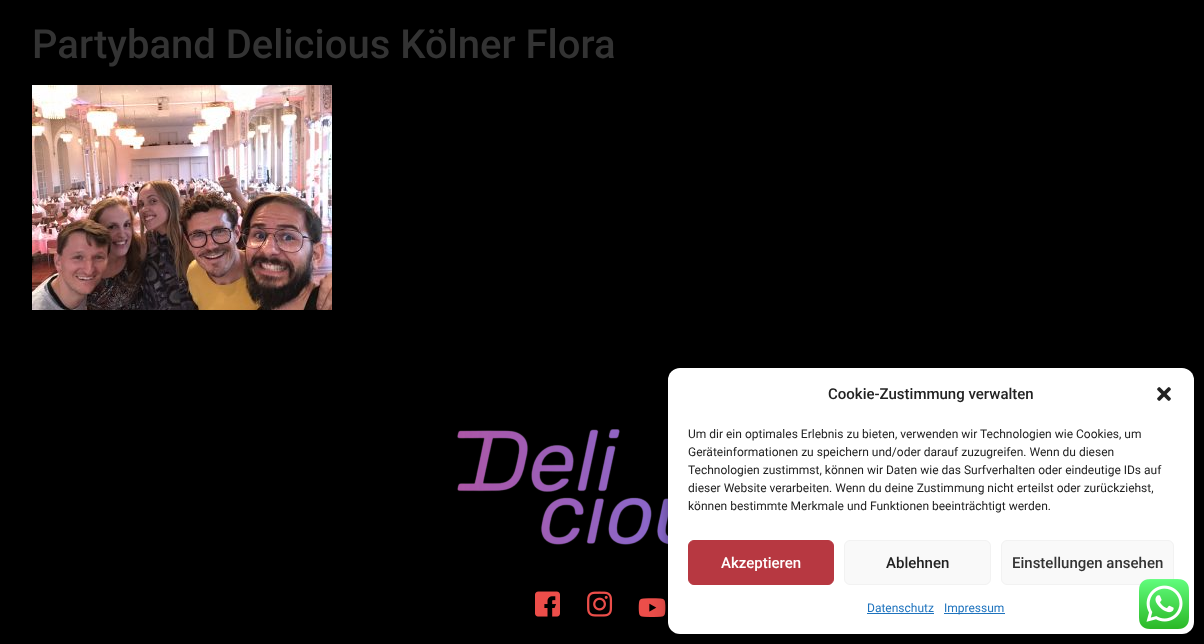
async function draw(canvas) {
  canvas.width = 1204
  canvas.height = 644
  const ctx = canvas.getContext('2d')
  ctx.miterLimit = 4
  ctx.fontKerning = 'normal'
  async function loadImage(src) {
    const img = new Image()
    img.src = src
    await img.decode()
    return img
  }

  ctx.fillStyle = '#000'
  ctx.fillRect(0, 0, 1204, 644)
  ctx.font = '500 40px Roboto'
  ctx.fillStyle = '#333'
  ctx.fillText('Partyband Delicious Kölner Flora', 32, 58)
  ctx.drawImage(await loadImage('image0.png'), 32, 85, 300, 225)
  ctx.drawImage(await loadImage('image1.png'), 457, 429, 211, 116)
  ctx.drawImage(await loadImage('image2.png'), 535, 591, 25, 26)
  ctx.drawImage(await loadImage('image3.png'), 587, 591, 26, 26)
  ctx.drawImage(await loadImage('image4.png'), 638, 598, 28, 19)
  ctx.fillStyle = '#0000003b'
  ctx.filter = 'blur(3px)'
  ctx.beginPath()
  ctx.roundRect(668, 374, 526, 266, 12)
  ctx.fill()
  ctx.filter = 'none'
  ctx.fillStyle = '#00000030'
  ctx.filter = 'blur(10px)'
  ctx.beginPath()
  ctx.roundRect(668, 378, 526, 266, 12)
  ctx.fill()
  ctx.filter = 'none'
  ctx.fillStyle = '#fff'
  ctx.beginPath()
  ctx.roundRect(668, 368, 526, 266, 12)
  ctx.fill()
  ctx.font = '500 15px Roboto'
  ctx.fillStyle = '#222'
  ctx.fillText('Cookie-Zustimmung verwalten', 828, 399)
  ctx.drawImage(await loadImage('image5.png'), 1157, 387, 14, 14)
  ctx.font = '12px Roboto'
  ctx.fillText('Um dir ein optimales Erlebnis zu bieten, verwenden wir Technologien wie Cookies, um', 688, 438)
  ctx.fillText('Geräteinformationen zu speichern und/oder darauf zuzugreifen. Wenn du diesen', 688, 456)
  ctx.fillText('Technologien zustimmst, können wir Daten wie das Surfverhalten oder eindeutige IDs auf', 688, 474)
  ctx.fillText('dieser Website verarbeiten. Wenn du deine Zustimmung nicht erteilst oder zurückziehst,', 688, 492)
  ctx.fillText('können bestimmte Merkmale und Funktionen beeinträchtigt werden.', 688, 510)
  ctx.fillStyle = '#b73841'
  ctx.beginPath()
  ctx.roundRect(688.5, 540.5, 145, 44, 5.5)
  ctx.fill()
  ctx.strokeStyle = '#b73841'
  ctx.stroke()
  ctx.font = '500 15px Roboto'
  ctx.fillStyle = '#fff'
  ctx.fillText('Akzeptieren', 721, 568)
  ctx.fillStyle = '#f9f9f9'
  ctx.beginPath()
  ctx.roundRect(844.5, 540.5, 146, 44, 5.5)
  ctx.fill()
  ctx.strokeStyle = '#f2f2f2'
  ctx.stroke()
  ctx.fillStyle = '#222'
  ctx.fillText('Ablehnen', 886, 568)
  ctx.fillStyle = '#f9f9f9'
  ctx.beginPath()
  ctx.roundRect(1001.5, 540.5, 172, 44, 5.5)
  ctx.fill()
  ctx.stroke()
  ctx.fillStyle = '#333'
  ctx.fillText('Einstellungen ansehen', 1012, 568)
  ctx.font = '12px Roboto'
  ctx.fillStyle = '#1e73be'
  ctx.fillText('Datenschutz', 867, 612)
  ctx.fillRect(867, 613, 67, 1)
  ctx.fillRect(944, 613, 61, 1)
  ctx.fillText('Impressum', 944, 612)
  ctx.drawImage(await loadImage('image6.png'), 1139, 579, 50, 50)
}

draw(document.querySelector('canvas'))
